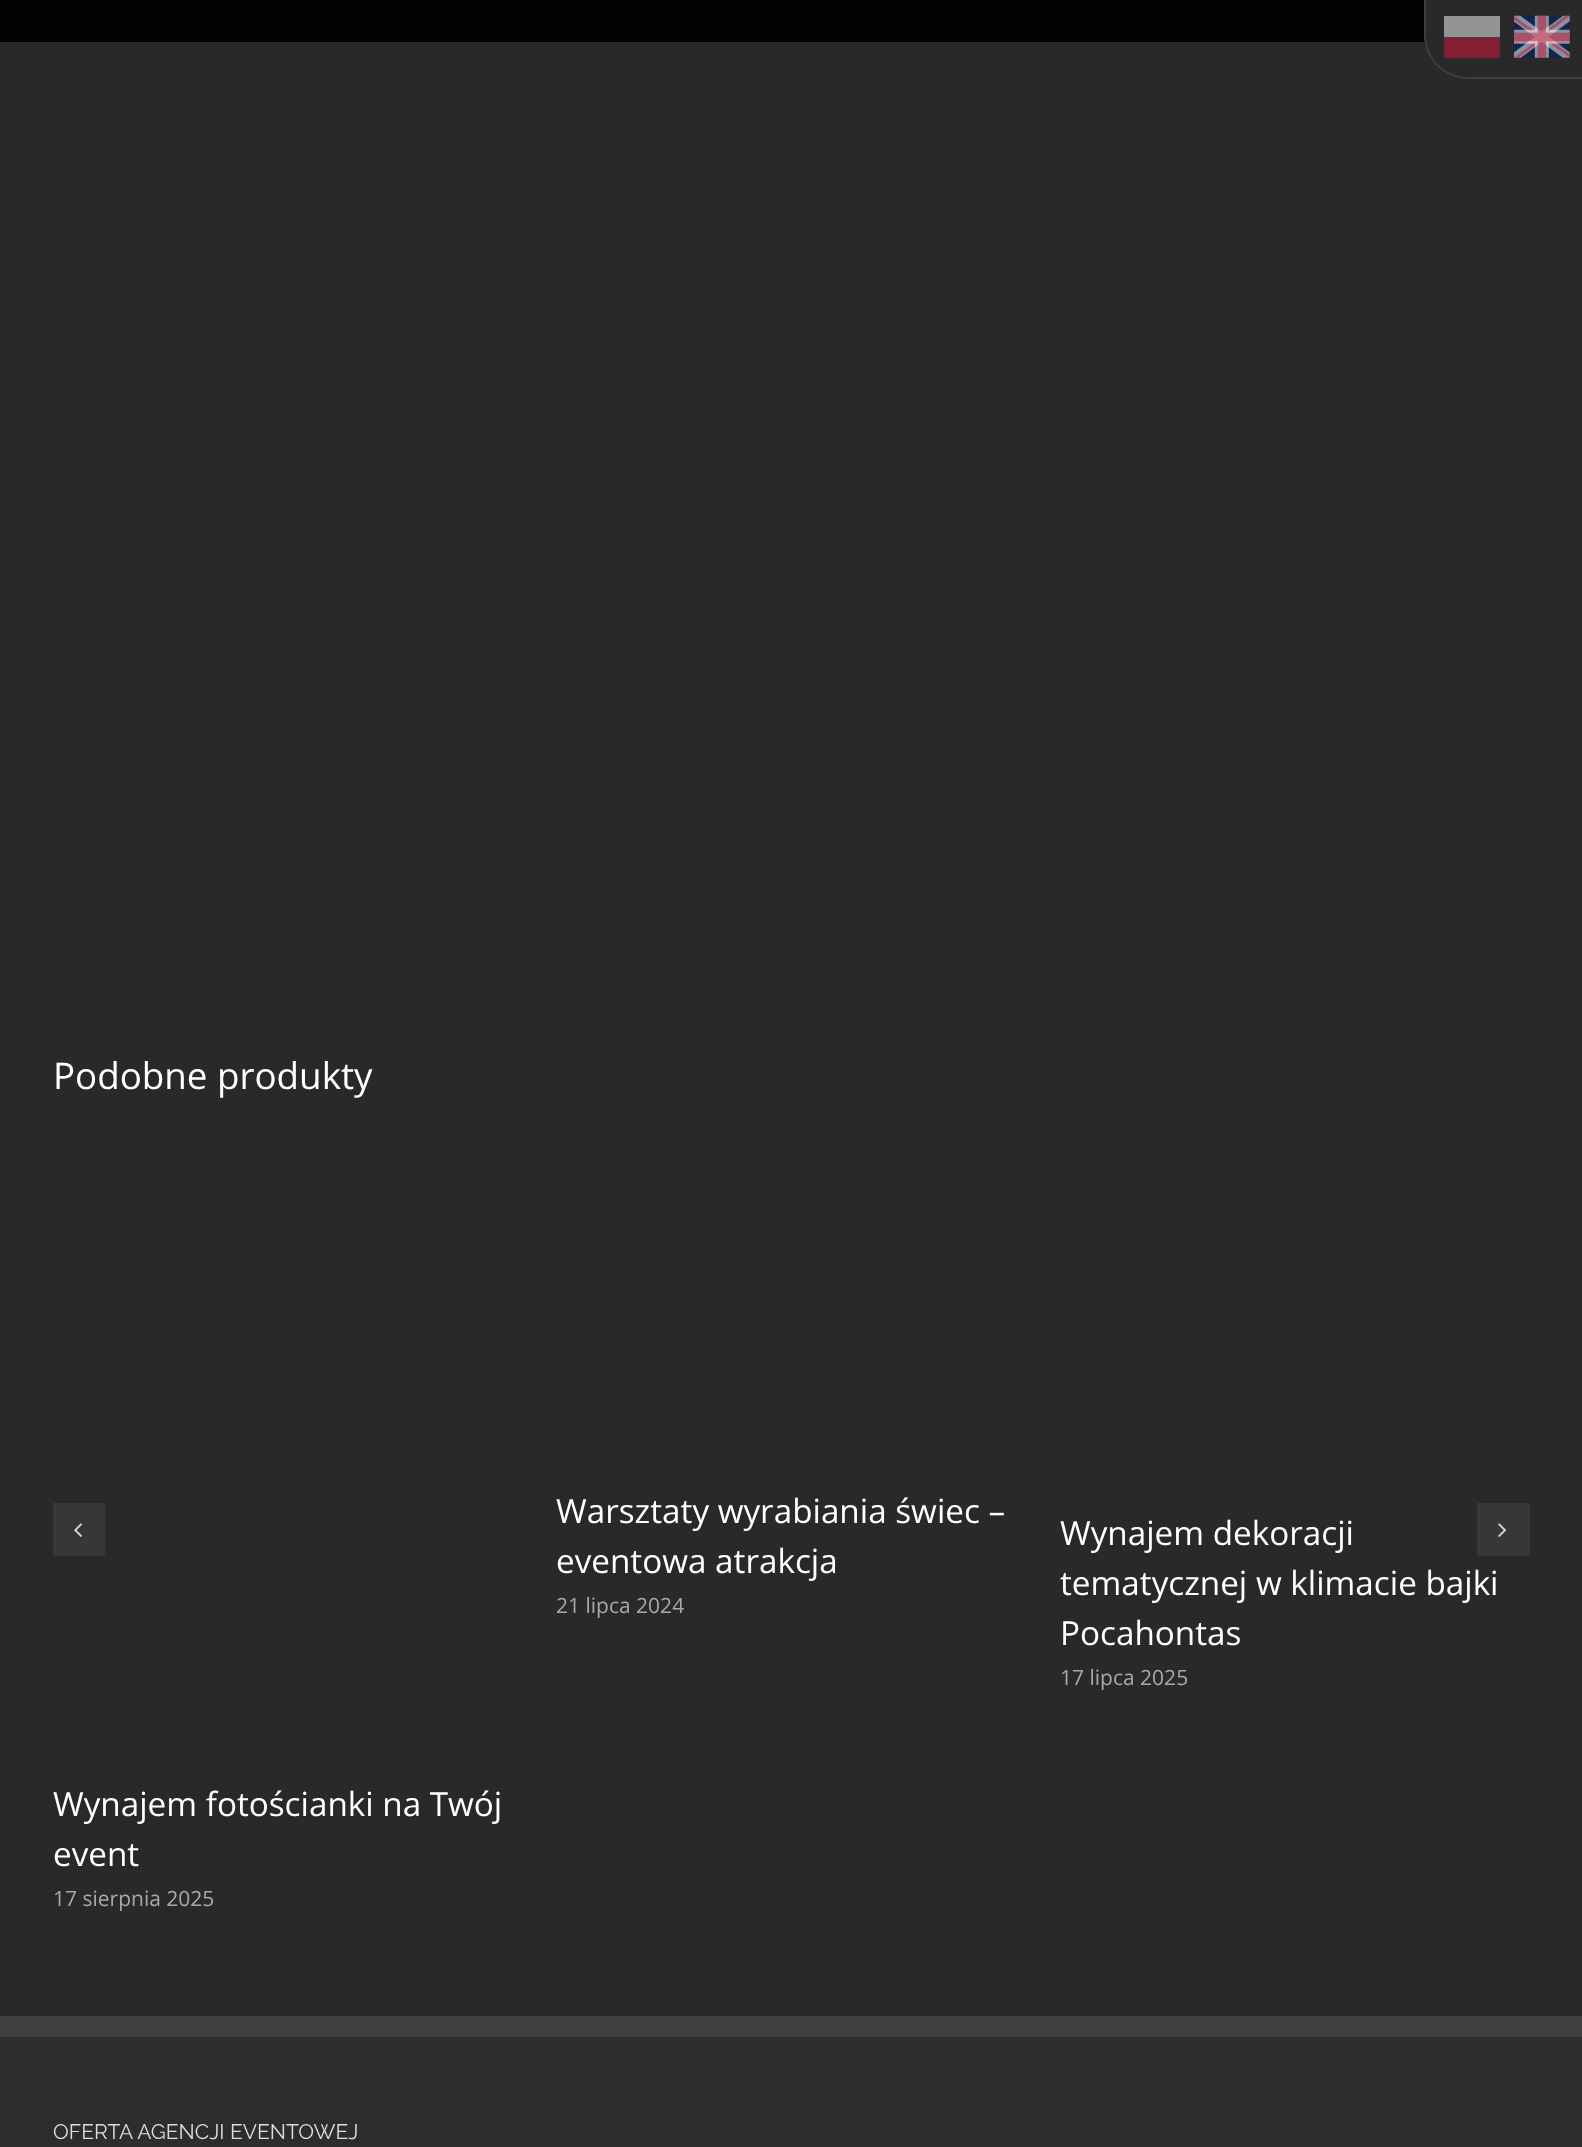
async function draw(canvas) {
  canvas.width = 1582
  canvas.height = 2147
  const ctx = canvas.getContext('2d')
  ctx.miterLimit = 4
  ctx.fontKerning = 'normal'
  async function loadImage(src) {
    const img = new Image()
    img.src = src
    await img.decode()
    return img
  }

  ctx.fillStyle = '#29292a'
  ctx.fillRect(0, 0, 1582, 2147)
  ctx.fillStyle = '#020202'
  ctx.fillRect(0, 0, 1425, 42)
  ctx.fillStyle = '#3e3e3e'
  ctx.beginPath()
  ctx.moveTo(1424, 0)
  ctx.lineTo(1582, 0)
  ctx.lineTo(1582, 79)
  ctx.lineTo(1468, 79)
  ctx.bezierCurveTo(1444, 79, 1424, 59, 1424, 35)
  ctx.closePath()
  ctx.moveTo(1426, 0)
  ctx.lineTo(1582, 0)
  ctx.lineTo(1582, 77)
  ctx.lineTo(1468, 77)
  ctx.bezierCurveTo(1445, 77, 1426, 58, 1426, 35)
  ctx.closePath()
  ctx.fill('evenodd')
  ctx.fillStyle = '#949495'
  ctx.fillRect(1444, 16, 56, 21)
  ctx.drawImage(await loadImage('image0.png'), 1514, 15, 56, 43)
  ctx.fillStyle = '#831f33'
  ctx.fillRect(1444, 37, 56, 21)
  ctx.font = '36.75px Open Sans'
  ctx.fillStyle = '#fff'
  ctx.fillText('Podobne produkty', 53, 1089)
  ctx.font = '33.25px Open Sans'
  ctx.fillText('Warsztaty wyrabiania świec –', 556, 1523)
  ctx.fillText('eventowa atrakcja', 556, 1573)
  ctx.font = '21px Open Sans'
  ctx.fillStyle = '#aaa9a9'
  ctx.fillText('21 lipca 2024', 556, 1613)
  ctx.font = '33.25px Open Sans'
  ctx.fillStyle = '#fff'
  ctx.fillText('Wynajem dekoracji', 1060, 1545)
  ctx.fillText('tematycznej w klimacie bajki', 1060, 1595)
  ctx.fillText('Pocahontas', 1060, 1645)
  ctx.font = '21px Open Sans'
  ctx.fillStyle = '#aaa9a9'
  ctx.fillText('17 lipca 2025', 1060, 1685)
  ctx.font = '33.25px Open Sans'
  ctx.fillStyle = '#fff'
  ctx.fillText('Wynajem fotościanki na Twój', 53, 1816)
  ctx.fillText('event', 53, 1866)
  ctx.font = '21px Open Sans'
  ctx.fillStyle = '#aaa9a9'
  ctx.fillText('17 sierpnia 2025', 53, 1906)
  ctx.fillStyle = '#373737'
  ctx.fillRect(53, 1503, 52, 53)
  ctx.drawImage(await loadImage('image1.png'), 74, 1523, 8, 14)
  ctx.fillRect(1477, 1503, 53, 53)
  ctx.drawImage(await loadImage('image2.png'), 1498, 1523, 9, 14)
  ctx.fillStyle = '#2d2d2d'
  ctx.fillRect(0, 2037, 1582, 110)
  ctx.fillStyle = '#403f3f'
  ctx.fillRect(0, 2016, 1582, 21)
  ctx.font = '100 21px Raleway'
  ctx.fillStyle = '#ddd'
  ctx.fillText('OFERTA AGENCJI EVENTOWEJ', 53, 2139)
}

draw(document.querySelector('canvas'))
